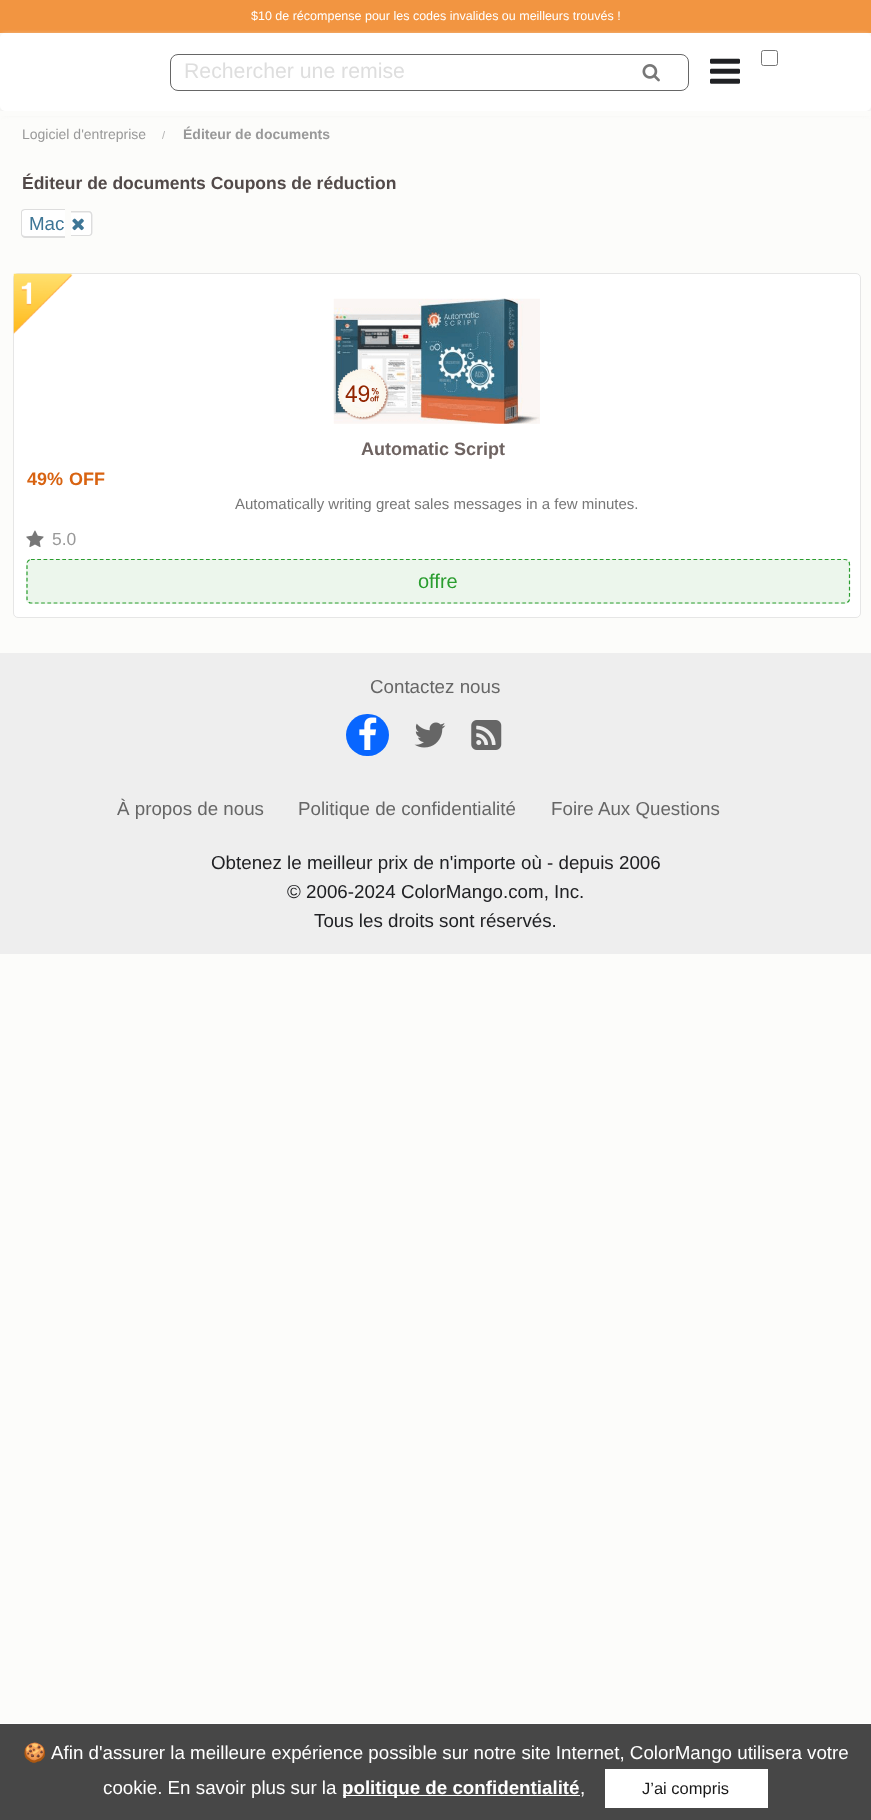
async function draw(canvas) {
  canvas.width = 871
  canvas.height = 1820
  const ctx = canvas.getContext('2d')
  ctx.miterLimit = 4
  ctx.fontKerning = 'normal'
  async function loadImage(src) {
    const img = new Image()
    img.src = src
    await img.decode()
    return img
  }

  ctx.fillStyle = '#fcfcfa'
  ctx.fillRect(0, 0, 871, 1820)
  ctx.fillStyle = '#f29541'
  ctx.fillRect(0, 0, 871, 33)
  ctx.font = '12.5px Liberation Sans'
  ctx.fillStyle = '#fff'
  ctx.fillText('$10 de récompense pour les codes invalides ou meilleurs trouvés !', 251, 20)
  ctx.fillStyle = '#eee'
  ctx.filter = 'blur(2.5px)'
  ctx.beginPath()
  ctx.roundRect(0, 35, 871, 79, 5)
  ctx.fill()
  ctx.filter = 'none'
  ctx.fillStyle = '#fff'
  ctx.beginPath()
  ctx.roundRect(0, 33, 871, 78, 5)
  ctx.fill()
  ctx.beginPath()
  ctx.roundRect(170.5, 54.5, 518, 36, 7.5)
  ctx.strokeStyle = '#666'
  ctx.stroke()
  ctx.font = '21.25px Liberation Sans'
  ctx.fillStyle = '#dedede'
  ctx.fillText('Rechercher une remise', 184, 78)
  ctx.drawImage(await loadImage('image0.png'), 642, 64, 18, 18)
  ctx.drawImage(await loadImage('image1.png'), 710, 58, 30, 26)
  ctx.beginPath()
  ctx.roundRect(761.5, 50.5, 16, 15, 2)
  ctx.strokeStyle = '#767676'
  ctx.stroke()
  ctx.fillStyle = '#fcfcfa'
  ctx.fillRect(0, 111, 871, 5)
  ctx.font = '14px Liberation Sans'
  ctx.fillStyle = '#999'
  ctx.fillText('Logiciel d\'entreprise', 22, 139)
  ctx.font = '11px Liberation Sans'
  ctx.fillStyle = '#b3b3b3'
  ctx.fillText('/', 162, 139)
  ctx.font = 'bold 14px Liberation Sans'
  ctx.fillStyle = '#999'
  ctx.fillText('Éditeur de documents', 183, 139)
  ctx.font = 'bold 17.5px Liberation Sans'
  ctx.fillStyle = '#524a49'
  ctx.fillText('Éditeur de documents Coupons de réduction', 22, 189)
  ctx.fillStyle = '#fff'
  ctx.beginPath()
  ctx.roundRect(21, 209, 44, 29, [4, 0, 0, 4])
  ctx.fill()
  ctx.fillStyle = '#ddd'
  ctx.beginPath()
  ctx.moveTo(25, 209)
  ctx.lineTo(65, 209)
  ctx.lineTo(65, 238)
  ctx.lineTo(25, 238)
  ctx.bezierCurveTo(23, 238, 21, 236, 21, 234)
  ctx.lineTo(21, 212)
  ctx.bezierCurveTo(21, 210, 23, 209, 25, 209)
  ctx.closePath()
  ctx.moveTo(25, 210)
  ctx.lineTo(65, 210)
  ctx.lineTo(65, 236)
  ctx.lineTo(25, 236)
  ctx.bezierCurveTo(24, 236, 22, 235, 22, 234)
  ctx.lineTo(22, 212)
  ctx.bezierCurveTo(22, 211, 24, 210, 25, 210)
  ctx.closePath()
  ctx.fill('evenodd')
  ctx.font = '18.75px Liberation Sans'
  ctx.fillStyle = '#3e7696'
  ctx.fillText('Mac', 29, 230)
  ctx.fillStyle = '#fff'
  ctx.beginPath()
  ctx.roundRect(71, 211, 22, 25, [0, 4, 4, 0])
  ctx.fill()
  ctx.fillStyle = '#ddd'
  ctx.beginPath()
  ctx.moveTo(71, 211)
  ctx.lineTo(89, 211)
  ctx.bezierCurveTo(91, 211, 92.5, 213, 92.5, 215)
  ctx.lineTo(92.5, 232.5)
  ctx.bezierCurveTo(92.5, 234.5, 91, 236, 89, 236)
  ctx.lineTo(71, 236)
  ctx.closePath()
  ctx.moveTo(71, 212.5)
  ctx.lineTo(89, 212.5)
  ctx.bezierCurveTo(90, 212.5, 91, 213.5, 91, 215)
  ctx.lineTo(91, 232.5)
  ctx.bezierCurveTo(91, 234, 90, 235, 89, 235)
  ctx.lineTo(71, 235)
  ctx.closePath()
  ctx.fill('evenodd')
  ctx.drawImage(await loadImage('image2.png'), 72, 218, 12, 13)
  ctx.fillStyle = '#fff'
  ctx.beginPath()
  ctx.roundRect(13.5, 273.5, 847, 344, 4.5)
  ctx.fill()
  ctx.strokeStyle = '#e6e6e6'
  ctx.stroke()
  ctx.drawImage(await loadImage('image3.png'), 13, 273, 60, 61)
  ctx.drawImage(await loadImage('image4.png'), 333, 298, 207, 126)
  ctx.font = 'bold 18px Liberation Sans'
  ctx.fillStyle = '#6e6361'
  ctx.fillText('Automatic Script', 361, 455)
  ctx.fillStyle = '#d86311'
  ctx.fillText('49%', 27, 485)
  ctx.fillText('OFF', 69, 485)
  ctx.font = '15px Liberation Sans'
  ctx.fillStyle = '#777'
  ctx.fillText('Automatically writing great sales messages in a few minutes.', 235, 509)
  ctx.drawImage(await loadImage('image5.png'), 26, 530, 18, 18)
  ctx.font = '17.5px Liberation Sans'
  ctx.fillStyle = '#999'
  ctx.fillText('5.0', 52, 545)
  ctx.fillStyle = '#ecf6ec'
  ctx.beginPath()
  ctx.roundRect(26, 559, 824, 45, 5)
  ctx.fill()
  ctx.beginPath()
  ctx.moveTo(31, 559.5)
  ctx.lineTo(845, 559.5)
  ctx.bezierCurveTo(847.5, 559.5, 849.5, 561.5, 849.5, 564)
  ctx.lineTo(849.5, 599)
  ctx.bezierCurveTo(849.5, 601, 847.5, 603, 845, 603)
  ctx.lineTo(31, 603)
  ctx.bezierCurveTo(29, 603, 27, 601, 27, 599)
  ctx.lineTo(27, 564)
  ctx.bezierCurveTo(27, 561.5, 29, 559.5, 31, 559.5)
  ctx.closePath()
  ctx.strokeStyle = '#2a9d2f'
  ctx.lineWidth = 1.2
  ctx.setLineDash([3.75, 2.5])
  ctx.stroke()
  ctx.font = '20px Liberation Sans'
  ctx.fillStyle = '#2a9d2f'
  ctx.fillText('offre', 418, 588)
  ctx.fillStyle = '#eee'
  ctx.fillRect(0, 653, 871, 301)
  ctx.font = '18.75px Liberation Sans'
  ctx.fillStyle = '#666'
  ctx.fillText('Contactez nous', 370, 693)
  ctx.fillStyle = '#0866ff'
  ctx.beginPath()
  ctx.roundRect(346, 714, 43, 42, 21)
  ctx.fill()
  ctx.drawImage(await loadImage('image6.png'), 359, 717, 18, 33)
  ctx.drawImage(await loadImage('image7.png'), 414, 722, 32, 26)
  ctx.drawImage(await loadImage('image8.png'), 471, 720, 31, 30)
  ctx.fillStyle = '#666'
  ctx.fillText('À propos de nous', 117, 815)
  ctx.fillText('Politique de confidentialité', 298, 815)
  ctx.fillText('Foire Aux Questions', 551, 815)
  ctx.fillStyle = '#202124'
  ctx.fillText('Obtenez le meilleur prix de n\'importe où - depuis 2006', 211, 869)
  ctx.fillText('© 2006-2024 ColorMango.com, Inc.', 287, 898)
  ctx.fillText('Tous les droits sont réservés.', 314, 927)
  ctx.fillStyle = '#474747'
  ctx.fillRect(0, 1724, 871, 96)
  ctx.fillStyle = '#fff'
  ctx.fillRect(0, 1723, 871, 1)
  ctx.font = '18.75px Noto Color Emoji'
  ctx.fillText('🍪', 23, 1759)
  ctx.font = '18.75px Liberation Sans'
  ctx.fillText('Afin d\'assurer la meilleure expérience possible sur notre site Internet, ColorMango utilisera votre', 51, 1759)
  ctx.fillText('cookie. En savoir plus sur la', 103, 1794)
  ctx.fillRect(343, 1795, 237, 1)
  ctx.font = 'bold 18.75px Liberation Sans'
  ctx.fillText('politique de confidentialité', 342, 1794)
  ctx.font = '18.75px Liberation Sans'
  ctx.fillText(',', 580, 1794)
  ctx.fillRect(605, 1769, 163, 39)
  ctx.font = '16.5px Liberation Sans'
  ctx.fillStyle = '#191919'
  ctx.fillText('J’ai compris', 642, 1794)
}

draw(document.querySelector('canvas'))
